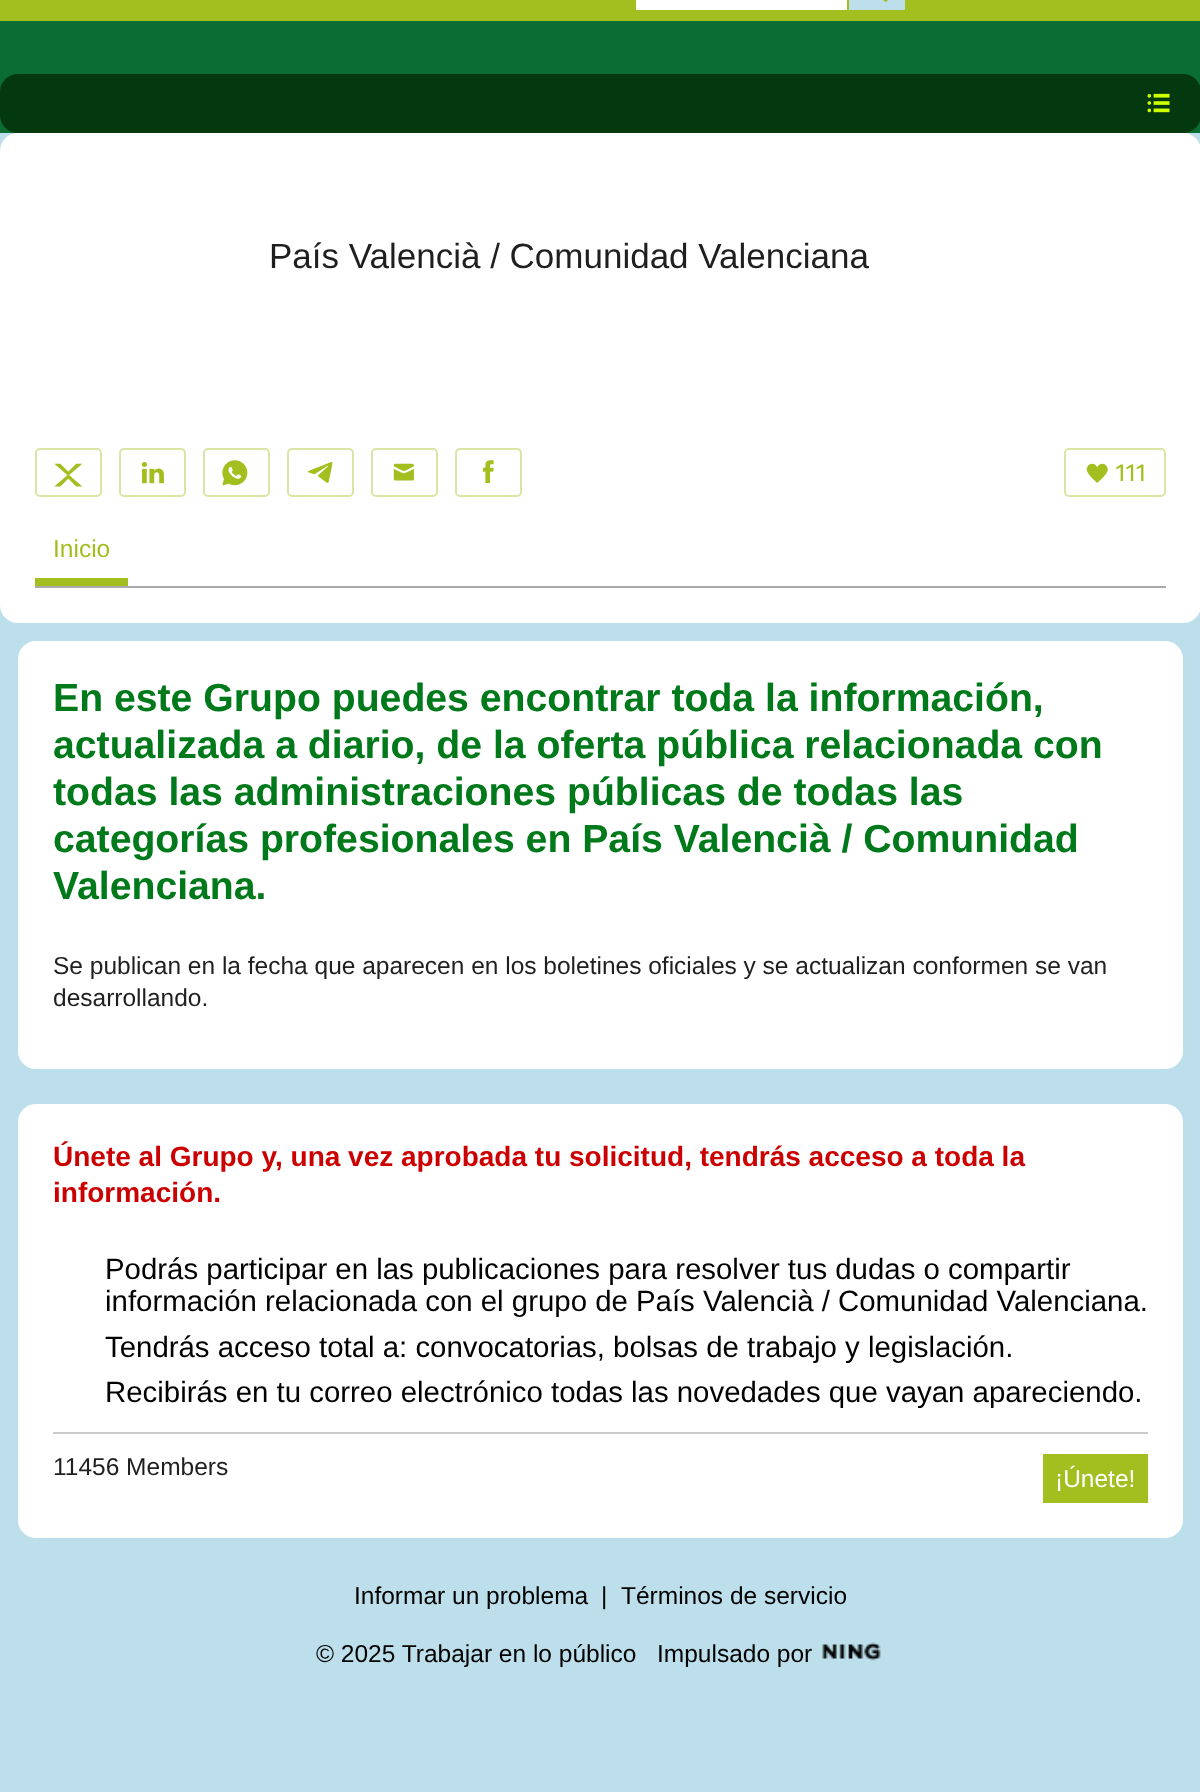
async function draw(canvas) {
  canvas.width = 1200
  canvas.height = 1792
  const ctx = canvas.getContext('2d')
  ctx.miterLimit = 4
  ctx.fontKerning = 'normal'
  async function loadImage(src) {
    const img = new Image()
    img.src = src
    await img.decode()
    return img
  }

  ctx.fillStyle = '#bcdfeb'
  ctx.fillRect(0, 0, 1200, 1792)
  ctx.fillStyle = '#a2bf1f'
  ctx.fillRect(0, 0, 1200, 21)
  ctx.fillStyle = '#fff'
  ctx.fillRect(636, 0, 211, 10)
  ctx.fillStyle = '#bcdfeb'
  ctx.fillRect(849, 0, 56, 10)
  ctx.fillStyle = '#a2bf1f'
  ctx.beginPath()
  ctx.moveTo(883.5, -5)
  ctx.lineTo(887.5, -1)
  ctx.bezierCurveTo(887.5, -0.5, 887.5, 0.5, 887.5, 1)
  ctx.bezierCurveTo(885.5, 3.5, 882, -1, 881, -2.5)
  ctx.bezierCurveTo(879.5, -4, 881.5, -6.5, 883.5, -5)
  ctx.closePath()
  ctx.fill()
  ctx.fillStyle = '#0b6d31'
  ctx.fillRect(0, 21, 1200, 112)
  ctx.fillStyle = '#04380f'
  ctx.beginPath()
  ctx.roundRect(0, 74, 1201, 59, 18)
  ctx.fill()
  ctx.drawImage(await loadImage('image0.png'), 1147, 93, 23, 20)
  ctx.fillStyle = '#fff'
  ctx.beginPath()
  ctx.roundRect(0, 133, 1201, 490, 18)
  ctx.fill()
  ctx.font = '35px Liberation Sans'
  ctx.fillStyle = '#1f1f1f'
  ctx.fillText('País Valencià / Comunidad Valenciana', 269, 268)
  ctx.beginPath()
  ctx.roundRect(36, 449, 65, 47, 4)
  ctx.strokeStyle = '#dae5a5'
  ctx.lineWidth = 2
  ctx.stroke()
  ctx.drawImage(await loadImage('image1.png'), 54, 463, 29, 24)
  ctx.beginPath()
  ctx.roundRect(120, 449, 65, 47, 4)
  ctx.stroke()
  ctx.drawImage(await loadImage('image2.png'), 141, 462, 23, 22)
  ctx.beginPath()
  ctx.roundRect(204, 449, 65, 47, 4)
  ctx.stroke()
  ctx.drawImage(await loadImage('image3.png'), 222, 460, 26, 26)
  ctx.beginPath()
  ctx.roundRect(288, 449, 65, 47, 4)
  ctx.stroke()
  ctx.drawImage(await loadImage('image4.png'), 308, 462, 25, 21)
  ctx.beginPath()
  ctx.roundRect(372, 449, 65, 47, 4)
  ctx.stroke()
  ctx.drawImage(await loadImage('image5.png'), 393, 463, 21, 18)
  ctx.beginPath()
  ctx.roundRect(456, 449, 65, 47, 4)
  ctx.stroke()
  ctx.drawImage(await loadImage('image6.png'), 483, 460, 11, 24)
  ctx.beginPath()
  ctx.roundRect(1065, 449, 100, 47, 4)
  ctx.stroke()
  ctx.drawImage(await loadImage('image7.png'), 1086, 463, 22, 20)
  ctx.font = '24.5px Fira Sans'
  ctx.fillStyle = '#a2bf1f'
  ctx.fillText('111', 1115, 481)
  ctx.fillStyle = '#aaa'
  ctx.fillRect(35, 586, 1131, 2)
  ctx.fillStyle = '#a2bf1f'
  ctx.fillRect(35, 578, 93, 8)
  ctx.font = '24.5px Liberation Sans'
  ctx.fillText('Inicio', 53, 557)
  ctx.fillStyle = '#fff'
  ctx.beginPath()
  ctx.roundRect(18, 641, 1165, 428, 18)
  ctx.fill()
  ctx.font = 'bold 39.2px Liberation Sans'
  ctx.fillStyle = '#00791a'
  ctx.fillText('En este Grupo puedes encontrar toda la información,', 53, 711)
  ctx.fillText('actualizada a diario, de la oferta pública relacionada con', 53, 758)
  ctx.fillText('todas las administraciones públicas de todas las', 53, 805)
  ctx.fillText('categorías profesionales en País Valencià / Comunidad', 53, 852)
  ctx.fillText('Valenciana.', 53, 899)
  ctx.font = '24.5px Liberation Sans'
  ctx.fillStyle = '#1f1f1f'
  ctx.fillText('Se publican en la fecha que aparecen en los boletines oficiales y se actualizan conformen se van', 53, 974)
  ctx.fillText('desarrollando.', 53, 1006)
  ctx.fillStyle = '#fff'
  ctx.beginPath()
  ctx.roundRect(18, 1104, 1165, 434, 18)
  ctx.fill()
  ctx.font = 'bold 28px Liberation Sans'
  ctx.fillStyle = '#c00'
  ctx.fillText('Únete al Grupo y, una vez aprobada tu solicitud, tendrás acceso a toda la', 53, 1166)
  ctx.fillText('información.', 53, 1202)
  ctx.font = '29.4px Liberation Sans'
  ctx.fillStyle = '#000'
  ctx.fillText('Podrás participar en las publicaciones para resolver tus dudas o compartir', 105, 1279)
  ctx.fillText('información relacionada con el grupo de País Valencià / Comunidad Valenciana.', 105, 1311)
  ctx.fillText('Tendrás acceso total a: convocatorias, bolsas de trabajo y legislación.', 105, 1357)
  ctx.fillText('Recibirás en tu correo electrónico todas las novedades que vayan apareciendo.', 105, 1402)
  ctx.fillStyle = '#ccc'
  ctx.fillRect(53, 1432, 1095, 2)
  ctx.font = '24.5px Liberation Sans'
  ctx.fillStyle = '#1f1f1f'
  ctx.fillText('11456 Members', 53, 1475)
  ctx.fillStyle = '#a2bf1f'
  ctx.fillRect(1043, 1454, 105, 49)
  ctx.fillStyle = '#fff'
  ctx.fillText('¡Únete!', 1055, 1487)
  ctx.fillStyle = '#000'
  ctx.fillText('Informar un problema', 354, 1604)
  ctx.fillText('|', 601, 1604)
  ctx.fillText('Términos de servicio', 621, 1604)
  ctx.fillText('© 2025 Trabajar en lo público', 316, 1662)
  ctx.fillText('Impulsado por', 657, 1662)
  ctx.drawImage(await loadImage('image8.png'), 822, 1642, 59, 19)
}

draw(document.querySelector('canvas'))
